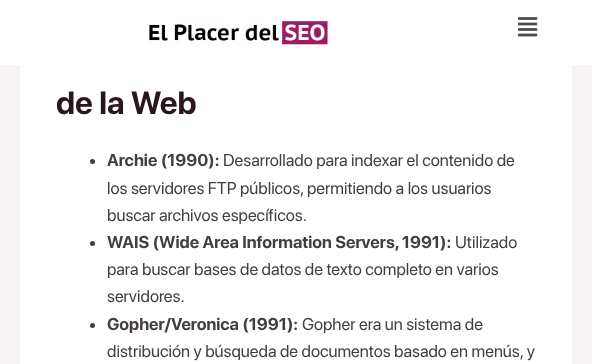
async function draw(canvas) {
  canvas.width = 592
  canvas.height = 364
  const ctx = canvas.getContext('2d')
  ctx.miterLimit = 4
  ctx.fontKerning = 'normal'
  async function loadImage(src) {
    const img = new Image()
    img.src = src
    await img.decode()
    return img
  }

  ctx.fillStyle = '#f7f3f5'
  ctx.fillRect(0, 0, 592, 364)
  ctx.fillStyle = '#fff'
  ctx.fillRect(0, 0, 592, 65)
  ctx.drawImage(await loadImage('image0.png'), 149, 21, 179, 24)
  ctx.drawImage(await loadImage('image1.png'), 518, 17, 20, 20)
  ctx.fillRect(20, 65, 552, 299)
  ctx.font = 'bold 32px SF Pro Display'
  ctx.fillStyle = '#2b161b'
  ctx.fillText('de la Web', 56, 114)
  ctx.fillStyle = '#453e3e'
  ctx.beginPath()
  ctx.arc(92.5, 161.5, 2.5, 0, 2 * Math.PI)
  ctx.fill()
  ctx.font = 'bold 17px SF Pro Display'
  ctx.fillText('Archie (1990):', 107, 166)
  ctx.font = '17px SF Pro Display'
  ctx.fillText('Desarrollado para indexar el contenido de', 223, 166)
  ctx.fillText('los servidores FTP públicos, permitiendo a los usuarios', 107, 194)
  ctx.fillText('buscar archivos específicos.', 107, 221)
  ctx.beginPath()
  ctx.arc(92.5, 243.5, 2.5, 0, 2 * Math.PI)
  ctx.fill()
  ctx.font = 'bold 17px SF Pro Display'
  ctx.fillText('WAIS (Wide Area Information Servers, 1991):', 107, 248)
  ctx.font = '17px SF Pro Display'
  ctx.fillText('Utilizado', 455, 248)
  ctx.fillText('para buscar bases de datos de texto completo en varios', 107, 275)
  ctx.fillText('servidores.', 107, 302)
  ctx.beginPath()
  ctx.arc(92.5, 325.5, 2.5, 0, 2 * Math.PI)
  ctx.fill()
  ctx.font = 'bold 17px SF Pro Display'
  ctx.fillText('Gopher/Veronica (1991):', 107, 330)
  ctx.font = '17px SF Pro Display'
  ctx.fillText('Gopher era un sistema de', 302, 330)
  ctx.fillText('distribución y búsqueda de documentos basado en menús, y', 107, 357)
}

draw(document.querySelector('canvas'))
